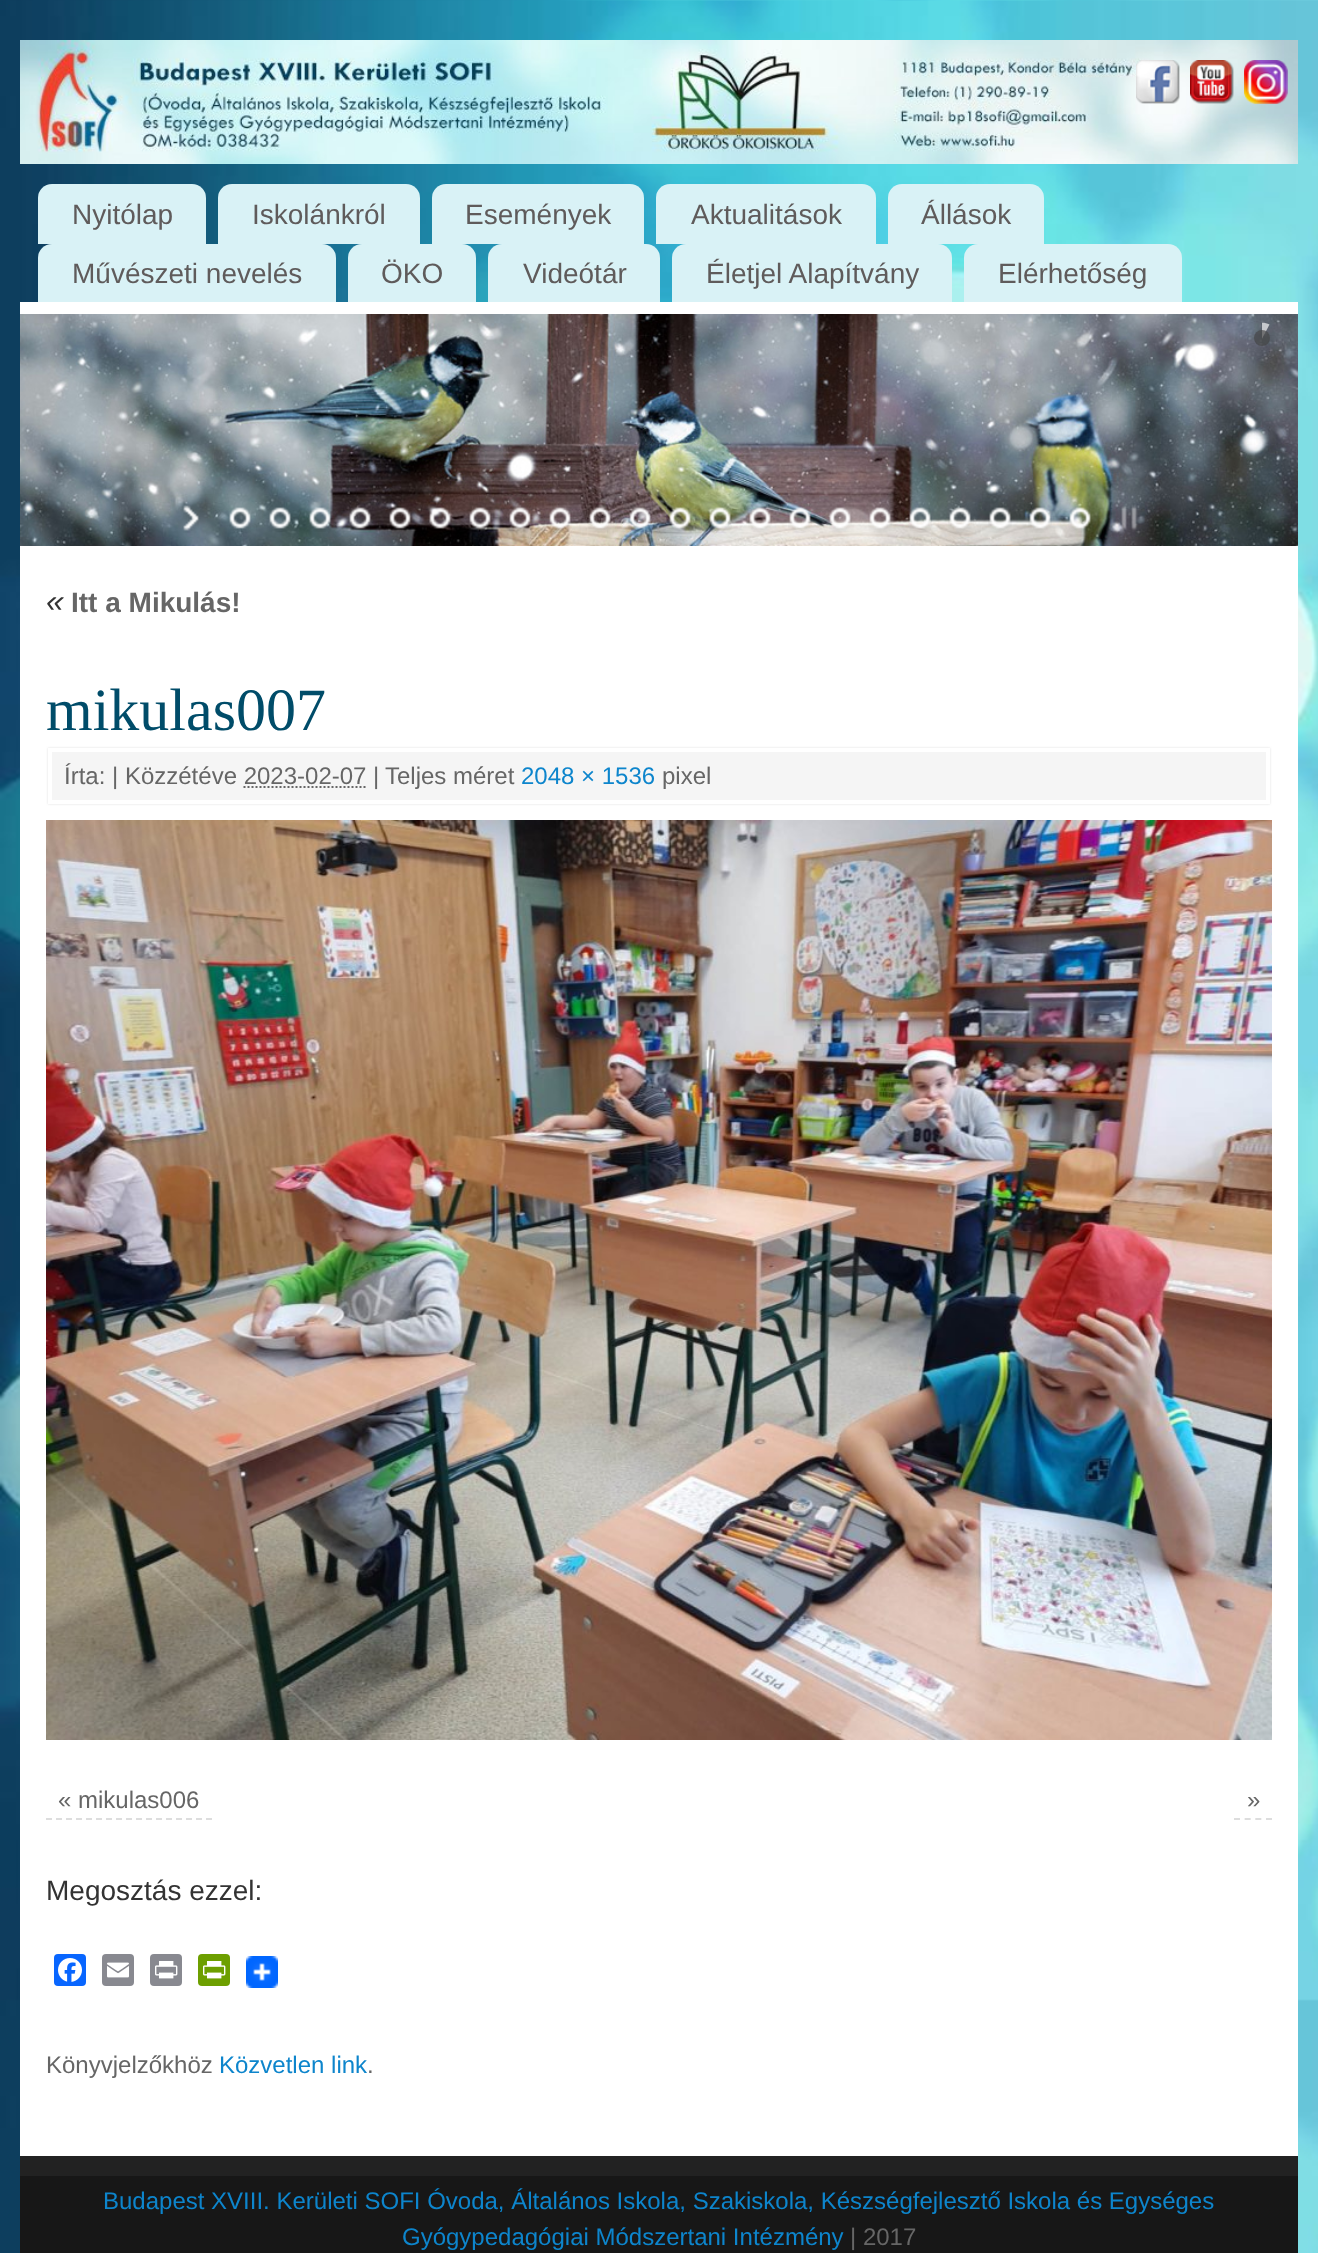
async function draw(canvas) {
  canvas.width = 1318
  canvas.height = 2253
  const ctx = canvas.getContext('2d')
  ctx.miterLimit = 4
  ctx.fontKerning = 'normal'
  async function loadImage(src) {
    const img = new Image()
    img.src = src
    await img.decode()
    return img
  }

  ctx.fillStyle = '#fff'
  ctx.fillRect(0, 0, 1318, 2253)
  ctx.drawImage(await loadImage('image0.png'), 0, 0, 1318, 2253)
  ctx.drawImage(await loadImage('image1.png'), 20, 40, 1278, 124)
  ctx.drawImage(await loadImage('image2.png'), 1136, 60, 44, 44)
  ctx.drawImage(await loadImage('image3.png'), 1190, 60, 44, 44)
  ctx.drawImage(await loadImage('image4.png'), 1244, 60, 44, 44)
  ctx.fillStyle = '#d9f2f6'
  ctx.beginPath()
  ctx.roundRect(38, 184, 168, 60, [14, 14, 0, 0])
  ctx.fill()
  ctx.font = '28px Liberation Sans'
  ctx.fillStyle = '#5f5b5b'
  ctx.fillText('Nyitólap', 72, 224)
  ctx.fillStyle = '#d9f2f6'
  ctx.beginPath()
  ctx.roundRect(218, 184, 202, 60, [14, 14, 0, 0])
  ctx.fill()
  ctx.fillStyle = '#5f5b5b'
  ctx.fillText('Iskolánkról', 252, 224)
  ctx.fillStyle = '#d9f2f6'
  ctx.beginPath()
  ctx.roundRect(432, 184, 212, 60, [14, 14, 0, 0])
  ctx.fill()
  ctx.fillStyle = '#5f5b5b'
  ctx.fillText('Események', 465, 224)
  ctx.fillStyle = '#d9f2f6'
  ctx.beginPath()
  ctx.roundRect(656, 184, 220, 60, [14, 14, 0, 0])
  ctx.fill()
  ctx.fillStyle = '#5f5b5b'
  ctx.fillText('Aktualitások', 691, 224)
  ctx.fillStyle = '#d9f2f6'
  ctx.beginPath()
  ctx.roundRect(888, 184, 156, 60, [14, 14, 0, 0])
  ctx.fill()
  ctx.fillStyle = '#5f5b5b'
  ctx.fillText('Állások', 921, 224)
  ctx.fillStyle = '#d9f2f6'
  ctx.beginPath()
  ctx.roundRect(38, 244, 298, 58, [14, 14, 0, 0])
  ctx.fill()
  ctx.fillStyle = '#5f5b5b'
  ctx.fillText('Művészeti nevelés', 72, 283)
  ctx.fillStyle = '#d9f2f6'
  ctx.beginPath()
  ctx.roundRect(348, 244, 128, 58, [14, 14, 0, 0])
  ctx.fill()
  ctx.fillStyle = '#5f5b5b'
  ctx.fillText('ÖKO', 381, 283)
  ctx.fillStyle = '#d9f2f6'
  ctx.beginPath()
  ctx.roundRect(488, 244, 172, 58, [14, 14, 0, 0])
  ctx.fill()
  ctx.fillStyle = '#5f5b5b'
  ctx.fillText('Videótár', 523, 283)
  ctx.fillStyle = '#d9f2f6'
  ctx.beginPath()
  ctx.roundRect(672, 244, 280, 58, [14, 14, 0, 0])
  ctx.fill()
  ctx.fillStyle = '#5f5b5b'
  ctx.fillText('Életjel Alapítvány', 706, 283)
  ctx.fillStyle = '#d9f2f6'
  ctx.beginPath()
  ctx.roundRect(964, 244, 218, 58, [14, 14, 0, 0])
  ctx.fill()
  ctx.fillStyle = '#5f5b5b'
  ctx.fillText('Elérhetőség', 998, 283)
  ctx.fillStyle = '#fff'
  ctx.fillRect(20, 302, 1278, 1854)
  ctx.drawImage(await loadImage('image5.png'), 20, 314, 1278, 232)
  ctx.save()
  ctx.beginPath()
  ctx.rect(1262, 322, 16, 32)
  ctx.clip()
  ctx.fillStyle = '#ffffffa6'
  ctx.beginPath()
  ctx.moveTo(1246.5, 333.5)
  ctx.lineTo(1248.5, 330)
  ctx.bezierCurveTo(1253.5, 323.5, 1262, 320.5, 1269.5, 324.5)
  ctx.lineTo(1254.5, 353)
  ctx.bezierCurveTo(1248, 349.5, 1244, 341, 1246.5, 333.5)
  ctx.closePath()
  ctx.fill()
  ctx.restore()
  ctx.fillStyle = '#444444a6'
  ctx.beginPath()
  ctx.arc(1262, 338, 8, 0, 2 * Math.PI)
  ctx.fill()
  ctx.drawImage(await loadImage('image6.png'), 183, 505, 16, 28)
  ctx.drawImage(await loadImage('image7.png'), 229, 507, 22, 26)
  ctx.drawImage(await loadImage('image8.png'), 269, 507, 22, 25)
  ctx.drawImage(await loadImage('image9.png'), 309, 507, 22, 25)
  ctx.drawImage(await loadImage('image10.png'), 349, 507, 22, 26)
  ctx.drawImage(await loadImage('image11.png'), 389, 507, 22, 22)
  ctx.drawImage(await loadImage('image12.png'), 429, 507, 22, 22)
  ctx.drawImage(await loadImage('image13.png'), 469, 507, 22, 22)
  ctx.drawImage(await loadImage('image14.png'), 509, 507, 22, 26)
  ctx.drawImage(await loadImage('image15.png'), 549, 507, 23, 26)
  ctx.drawImage(await loadImage('image16.png'), 588, 507, 24, 26)
  ctx.drawImage(await loadImage('image17.png'), 628, 507, 24, 26)
  ctx.drawImage(await loadImage('image18.png'), 669, 507, 22, 26)
  ctx.drawImage(await loadImage('image19.png'), 709, 507, 23, 26)
  ctx.drawImage(await loadImage('image20.png'), 748, 507, 24, 26)
  ctx.drawImage(await loadImage('image21.png'), 788, 507, 24, 26)
  ctx.drawImage(await loadImage('image22.png'), 829, 507, 23, 26)
  ctx.drawImage(await loadImage('image23.png'), 868, 507, 24, 26)
  ctx.drawImage(await loadImage('image24.png'), 908, 507, 24, 26)
  ctx.drawImage(await loadImage('image25.png'), 948, 507, 24, 26)
  ctx.drawImage(await loadImage('image26.png'), 988, 507, 24, 26)
  ctx.drawImage(await loadImage('image27.png'), 1028, 507, 24, 26)
  ctx.drawImage(await loadImage('image28.png'), 1068, 507, 23, 26)
  ctx.drawImage(await loadImage('image29.png'), 1120, 505, 18, 26)
  ctx.font = 'italic 32px Liberation Sans'
  ctx.fillStyle = '#333'
  ctx.fillText('«', 46, 612)
  ctx.font = 'bold 28px Liberation Sans'
  ctx.fillStyle = '#666'
  ctx.fillText('Itt a Mikulás!', 71, 612)
  ctx.font = '60px Liberation Serif'
  ctx.fillStyle = '#004c69'
  ctx.fillText('mikulas007', 46, 730)
  ctx.fillStyle = '#ddd'
  ctx.filter = 'blur(1px)'
  ctx.beginPath()
  ctx.rect(48, 748, 1222, 56)
  ctx.fill()
  ctx.filter = 'none'
  ctx.fillStyle = '#f5f5f5'
  ctx.beginPath()
  ctx.rect(50, 750, 1218, 52)
  ctx.fill()
  ctx.strokeStyle = '#fff'
  ctx.lineWidth = 4
  ctx.stroke()
  ctx.font = '24px Liberation Sans'
  ctx.fillStyle = '#666'
  ctx.fillText('Írta: | Közzétéve 2023-02-07 |', 64, 784)
  ctx.fillText('Teljes méret', 385, 784)
  ctx.fillStyle = '#0d85cc'
  ctx.fillText('2048 × 1536', 521, 784)
  ctx.fillStyle = '#666'
  ctx.fillText('pixel', 662, 784)
  ctx.beginPath()
  ctx.moveTo(243.5, 787)
  ctx.lineTo(366, 787)
  ctx.strokeStyle = '#666'
  ctx.lineWidth = 2
  ctx.setLineDash([2, 2])
  ctx.stroke()
  ctx.drawImage(await loadImage('image30.png'), 46, 820, 1226, 920)
  ctx.beginPath()
  ctx.moveTo(46, 1819)
  ctx.lineTo(212, 1819)
  ctx.strokeStyle = '#ddd'
  ctx.setLineDash([6, 4])
  ctx.stroke()
  ctx.fillText('« mikulas006', 58, 1808)
  ctx.beginPath()
  ctx.moveTo(1234, 1819)
  ctx.lineTo(1272, 1819)
  ctx.setLineDash([6, 4.66])
  ctx.stroke()
  ctx.fillText('»', 1247, 1808)
  ctx.font = '28px Liberation Sans'
  ctx.fillStyle = '#333'
  ctx.fillText('Megosztás ezzel:', 46, 1900)
  ctx.fillStyle = '#0866ff'
  ctx.beginPath()
  ctx.roundRect(54, 1954, 32, 32, 4)
  ctx.fill()
  ctx.drawImage(await loadImage('image31.png'), 58, 1958, 24, 24)
  ctx.fillStyle = '#888990'
  ctx.beginPath()
  ctx.roundRect(102, 1954, 32, 32, 4)
  ctx.fill()
  ctx.drawImage(await loadImage('image32.png'), 107, 1962, 22, 16)
  ctx.beginPath()
  ctx.roundRect(150, 1954, 32, 32, 4)
  ctx.fill()
  ctx.drawImage(await loadImage('image33.png'), 155, 1961, 23, 18)
  ctx.fillStyle = '#6d9f00'
  ctx.beginPath()
  ctx.roundRect(198, 1954, 32, 32, 4)
  ctx.fill()
  ctx.drawImage(await loadImage('image34.png'), 203, 1961, 23, 18)
  ctx.drawImage(await loadImage('image35.png'), 246, 1956, 32, 32)
  ctx.font = '24px Liberation Sans'
  ctx.fillStyle = '#666'
  ctx.fillText('Könyvjelzőkhöz', 46, 2073)
  ctx.fillStyle = '#0d85cc'
  ctx.fillText('Közvetlen link', 219, 2073)
  ctx.fillStyle = '#666'
  ctx.fillText('.', 367, 2073)
  ctx.fillStyle = '#222'
  ctx.fillRect(20, 2156, 1278, 20)
  ctx.fillStyle = '#171717'
  ctx.fillRect(20, 2176, 1278, 77)
  ctx.fillStyle = '#0d85cc'
  ctx.fillText('Budapest XVIII. Kerületi SOFI Óvoda, Általános Iskola, Szakiskola, Készségfejlesztő Iskola és Egységes', 103, 2209)
  ctx.fillText('Gyógypedagógiai Módszertani Intézmény', 402, 2245)
  ctx.fillStyle = '#666'
  ctx.fillText('| 2017', 850, 2245)
}

draw(document.querySelector('canvas'))
